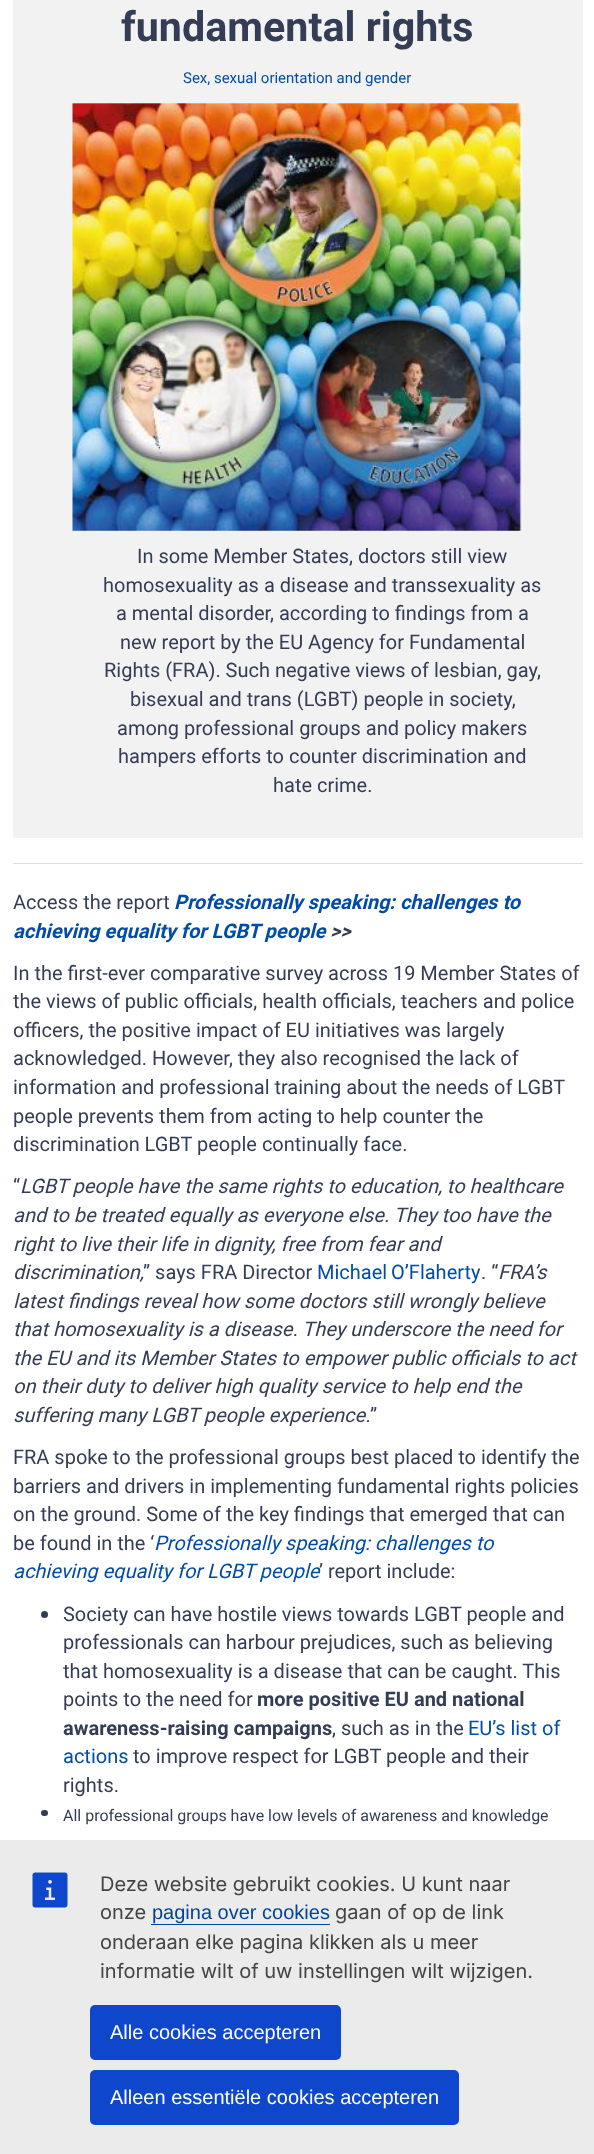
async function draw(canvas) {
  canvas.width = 594
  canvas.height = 2154
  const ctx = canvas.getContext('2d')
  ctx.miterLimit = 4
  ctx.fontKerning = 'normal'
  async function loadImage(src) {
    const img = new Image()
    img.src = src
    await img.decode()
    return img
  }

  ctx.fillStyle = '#fff'
  ctx.fillRect(0, 0, 594, 2154)
  ctx.fillStyle = '#f2f2f2'
  ctx.fillRect(13, 0, 570, 838)
  ctx.font = 'bold 41.25px Roboto'
  ctx.fillStyle = '#343d55'
  ctx.fillText('fundamental rights', 121, 41)
  ctx.font = '15px Roboto'
  ctx.fillStyle = '#004ca6'
  ctx.fillText('Sex, sexual orientation and gender', 183, 83)
  ctx.drawImage(await loadImage('image0.png'), 72, 103, 451, 428)
  ctx.font = '20px Roboto'
  ctx.fillStyle = '#343d55'
  ctx.fillText('In some Member States, doctors still view', 137, 563)
  ctx.fillText('homosexuality as a disease and transsexuality as', 103, 592)
  ctx.fillText('a mental disorder, according to findings from a', 116, 620)
  ctx.fillText('new report by the EU Agency for Fundamental', 120, 649)
  ctx.fillText('Rights (FRA). Such negative views of lesbian, gay,', 104, 677)
  ctx.fillText('bisexual and trans (LGBT) people in society,', 130, 706)
  ctx.fillText('among professional groups and policy makers', 117, 735)
  ctx.fillText('hampers efforts to counter discrimination and', 118, 763)
  ctx.fillText('hate crime.', 273, 792)
  ctx.fillStyle = '#dcdee3'
  ctx.fillRect(13, 863, 570, 1)
  ctx.fillStyle = '#343d55'
  ctx.fillText('Access the report', 13, 909)
  ctx.font = 'italic bold 20px Roboto'
  ctx.fillStyle = '#004ca6'
  ctx.fillText('Professionally speaking: challenges to', 174, 909)
  ctx.fillText('achieving equality for LGBT people', 13, 938)
  ctx.fillStyle = '#343d55'
  ctx.fillText('>>', 330, 938)
  ctx.font = '20px Roboto'
  ctx.fillText('In the first-ever comparative survey across 19 Member States of', 13, 980)
  ctx.fillText('the views of public officials, health officials, teachers and police', 13, 1008)
  ctx.fillText('officers, the positive impact of EU initiatives was largely', 13, 1037)
  ctx.fillText('acknowledged. However, they also recognised the lack of', 13, 1065)
  ctx.fillText('information and professional training about the needs of LGBT', 13, 1094)
  ctx.fillText('people prevents them from acting to help counter the', 13, 1123)
  ctx.fillText('discrimination LGBT people continually face.', 13, 1151)
  ctx.fillText('“', 13, 1193)
  ctx.font = 'italic 20px Roboto'
  ctx.fillText('LGBT people have the same rights to education, to healthcare', 20, 1193)
  ctx.fillText('and to be treated equally as everyone else. They too have the', 13, 1222)
  ctx.fillText('right to live their life in dignity, free from fear and', 13, 1251)
  ctx.fillText('discrimination,', 13, 1279)
  ctx.font = '20px Roboto'
  ctx.fillText('” says FRA Director', 143, 1279)
  ctx.wordSpacing = '-1px'
  ctx.fillStyle = '#004ca6'
  ctx.fillText('Michael O’Flaherty', 317, 1279)
  ctx.wordSpacing = '0px'
  ctx.fillStyle = '#343d55'
  ctx.fillText('. “', 481, 1279)
  ctx.font = 'italic 20px Roboto'
  ctx.fillText('FRA’s', 498, 1279)
  ctx.fillText('latest findings reveal how some doctors still wrongly believe', 13, 1308)
  ctx.fillText('that homosexuality is a disease. They underscore the need for', 13, 1336)
  ctx.fillText('the EU and its Member States to empower public officials to act', 13, 1365)
  ctx.fillText('on their duty to deliver high quality service to help end the', 13, 1393)
  ctx.fillText('suffering many LGBT people experience.', 13, 1422)
  ctx.font = '20px Roboto'
  ctx.fillText('”', 370, 1422)
  ctx.fillText('FRA spoke to the professional groups best placed to identify the', 13, 1464)
  ctx.fillText('barriers and drivers in implementing fundamental rights policies', 13, 1493)
  ctx.fillText('on the ground. Some of the key findings that emerged that can', 13, 1521)
  ctx.fillText('be found in the ‘', 13, 1550)
  ctx.font = 'italic 20px Roboto'
  ctx.fillStyle = '#004ca6'
  ctx.fillText('Professionally speaking: challenges to', 154, 1550)
  ctx.fillText('achieving equality for LGBT people', 13, 1578)
  ctx.font = '20px Roboto'
  ctx.fillStyle = '#343d55'
  ctx.fillText('’ report include:', 319, 1578)
  ctx.beginPath()
  ctx.arc(44.5, 1614.5, 3.5, 0, 2 * Math.PI)
  ctx.fill()
  ctx.fillText('Society can have hostile views towards LGBT people and', 63, 1621)
  ctx.fillText('professionals can harbour prejudices, such as believing', 63, 1649)
  ctx.fillText('that homosexuality is a disease that can be caught. This', 63, 1678)
  ctx.fillText('points to the need for', 63, 1706)
  ctx.font = 'bold 20px Roboto'
  ctx.fillText('more positive EU and national', 257, 1706)
  ctx.fillText('awareness-raising campaigns', 63, 1735)
  ctx.font = '20px Roboto'
  ctx.fillText(', such as in the', 332, 1735)
  ctx.fillStyle = '#004ca6'
  ctx.fillText('EU’s list of', 468, 1735)
  ctx.fillText('actions', 63, 1763)
  ctx.fillStyle = '#343d55'
  ctx.fillText('to improve respect for LGBT people and their', 133, 1763)
  ctx.fillText('rights.', 63, 1792)
  ctx.beginPath()
  ctx.roundRect(41, 1810, 7, 6, 3)
  ctx.fill()
  ctx.font = '16px Roboto'
  ctx.fillText('All professional groups have low levels of awareness and knowledge', 63, 1821)
  ctx.fillStyle = '#ebebeb'
  ctx.fillRect(0, 1840, 594, 314)
  ctx.drawImage(await loadImage('image1.png'), 32, 1872, 36, 36)
  ctx.font = '20px Inter'
  ctx.fillStyle = '#444'
  ctx.fillText('Deze website gebruikt cookies. U kunt naar', 100, 1891)
  ctx.fillText('onze', 100, 1919)
  ctx.font = '20px Liberation Sans'
  ctx.fillStyle = '#004494'
  ctx.fillText('pagina over cookies', 152, 1919)
  ctx.fillRect(151, 1924, 179, 1)
  ctx.font = '20px Inter'
  ctx.fillStyle = '#444'
  ctx.fillText('gaan of op de link', 335, 1919)
  ctx.fillText('onderaan elke pagina klikken als u meer', 100, 1949)
  ctx.fillText('informatie wilt of uw instellingen wilt wijzigen.', 100, 1978)
  ctx.fillStyle = '#0e47cb'
  ctx.beginPath()
  ctx.roundRect(90, 2005, 251, 55, 5)
  ctx.fill()
  ctx.font = '20px Liberation Sans'
  ctx.fillStyle = '#fff'
  ctx.fillText('Alle cookies accepteren', 110, 2039)
  ctx.fillStyle = '#0e47cb'
  ctx.beginPath()
  ctx.roundRect(90, 2070, 369, 55, 5)
  ctx.fill()
  ctx.fillStyle = '#fff'
  ctx.fillText('Alleen essentiële cookies accepteren', 110, 2104)
}

draw(document.querySelector('canvas'))
